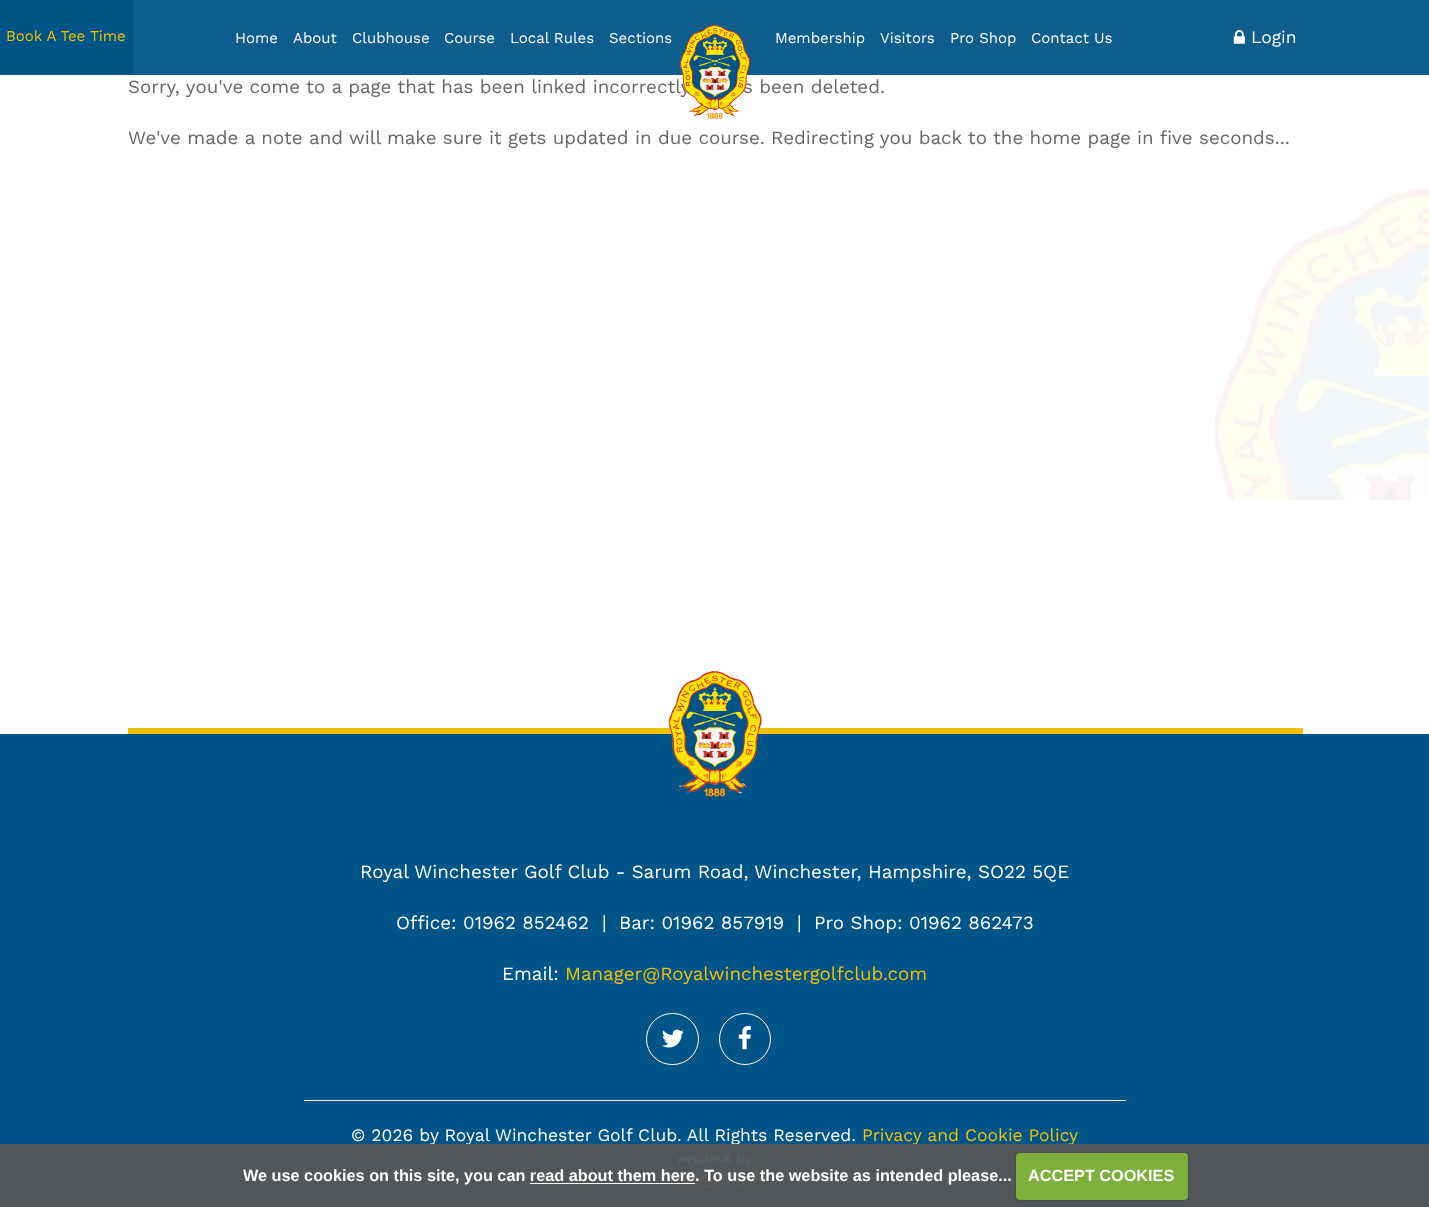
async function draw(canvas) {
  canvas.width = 1429
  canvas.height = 1207
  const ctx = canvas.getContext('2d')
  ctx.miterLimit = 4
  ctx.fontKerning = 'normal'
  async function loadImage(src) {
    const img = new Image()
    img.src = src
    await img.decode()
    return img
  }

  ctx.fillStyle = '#fff'
  ctx.fillRect(0, 0, 1429, 1207)
  ctx.fillStyle = '#0d5d8d'
  ctx.fillRect(0, 0, 1429, 75)
  ctx.drawImage(await loadImage('image0.png'), 1213, 189, 216, 311)
  ctx.fillStyle = '#005487f2'
  ctx.fillRect(0, 0, 133, 74)
  ctx.font = '15px Work Sans'
  ctx.fillStyle = '#f3c207'
  ctx.fillText('Book A Tee Time', 6, 41)
  ctx.font = '18.75px Work Sans'
  ctx.fillStyle = '#666'
  ctx.fillText('Sorry, you\'ve come to a page that has been linked incorrectly', 128, 93)
  ctx.fillText('s been deleted.', 743, 93)
  ctx.drawImage(await loadImage('image1.png'), 680, 25, 71, 94)
  ctx.drawImage(await loadImage('image2.png'), 1233, 30, 12, 14)
  ctx.font = '17.5px Work Sans'
  ctx.fillStyle = '#fff'
  ctx.fillText('Login', 1251, 43)
  ctx.font = '15px Work Sans'
  ctx.fillText('Home', 235, 43)
  ctx.fillText('About', 293, 43)
  ctx.fillText('Clubhouse', 352, 43)
  ctx.fillText('Course', 444, 43)
  ctx.fillText('Local Rules', 510, 43)
  ctx.fillText('Sections', 609, 43)
  ctx.fillText('Membership', 775, 43)
  ctx.fillText('Visitors', 880, 43)
  ctx.fillText('Pro Shop', 950, 43)
  ctx.fillText('Contact Us', 1031, 43)
  ctx.font = '18.75px Work Sans'
  ctx.fillStyle = '#666'
  ctx.fillText('We\'ve made a note and will make sure it gets updated in due course. Redirecting you back to the home page in five seconds...', 128, 144)
  ctx.fillStyle = '#005487'
  ctx.fillRect(0, 734, 1429, 473)
  ctx.drawImage(await loadImage('image3.png'), 668, 671, 94, 126)
  ctx.fillStyle = '#f3c207'
  ctx.fillRect(128, 728, 1175, 6)
  ctx.drawImage(await loadImage('image4.png'), 668, 671, 94, 126)
  ctx.fillStyle = '#fff'
  ctx.fillText('Royal Winchester Golf Club - Sarum Road, Winchester, Hampshire, SO22 5QE', 360, 878)
  ctx.fillText('Office: 01962 852462', 396, 929)
  ctx.fillText('|', 602, 929)
  ctx.fillText('Bar: 01962 857919', 619, 929)
  ctx.fillText('|', 797, 929)
  ctx.fillText('Pro Shop: 01962 862473', 814, 929)
  ctx.fillText('Email:', 502, 980)
  ctx.fillStyle = '#f3c207'
  ctx.fillText('Manager@Royalwinchestergolfclub.com', 565, 980)
  ctx.beginPath()
  ctx.roundRect(646.5, 1013.5, 52, 51, 25.5)
  ctx.strokeStyle = '#fff'
  ctx.stroke()
  ctx.drawImage(await loadImage('image5.png'), 662, 1029, 22, 19)
  ctx.beginPath()
  ctx.arc(745, 1039, 25.5, 0, 2 * Math.PI)
  ctx.stroke()
  ctx.drawImage(await loadImage('image6.png'), 738, 1026, 13, 24)
  ctx.fillStyle = '#f2f6f9'
  ctx.fillRect(304, 1100, 822, 1)
  ctx.font = '17.5px Work Sans'
  ctx.fillStyle = '#fff'
  ctx.fillText('© 2026 by Royal Winchester Golf Club. All Rights Reserved.', 351, 1141)
  ctx.fillStyle = '#f3c207'
  ctx.fillText('Privacy and Cookie Policy', 862, 1141)
  ctx.drawImage(await loadImage('image7.png'), 666, 1153, 98, 35)
  ctx.fillStyle = '#565656f2'
  ctx.fillRect(0, 1144, 1429, 63)
  ctx.font = 'bold 16.25px Liberation Sans'
  ctx.fillStyle = '#fff'
  ctx.fillText('We use cookies on this site, you can read about them here. To use the website as intended please...', 243, 1181)
  ctx.fillStyle = '#00000040'
  ctx.filter = 'blur(1px)'
  ctx.beginPath()
  ctx.roundRect(1016, 1153, 172, 47, 4)
  ctx.fill()
  ctx.filter = 'none'
  ctx.fillStyle = '#7daf3b'
  ctx.beginPath()
  ctx.roundRect(1016, 1153, 172, 47, 4)
  ctx.fill()
  ctx.fillStyle = '#fff'
  ctx.fillText('ACCEPT COOKIES', 1028, 1181)
  ctx.fillRect(530, 1183, 165, 1)
}

draw(document.querySelector('canvas'))
